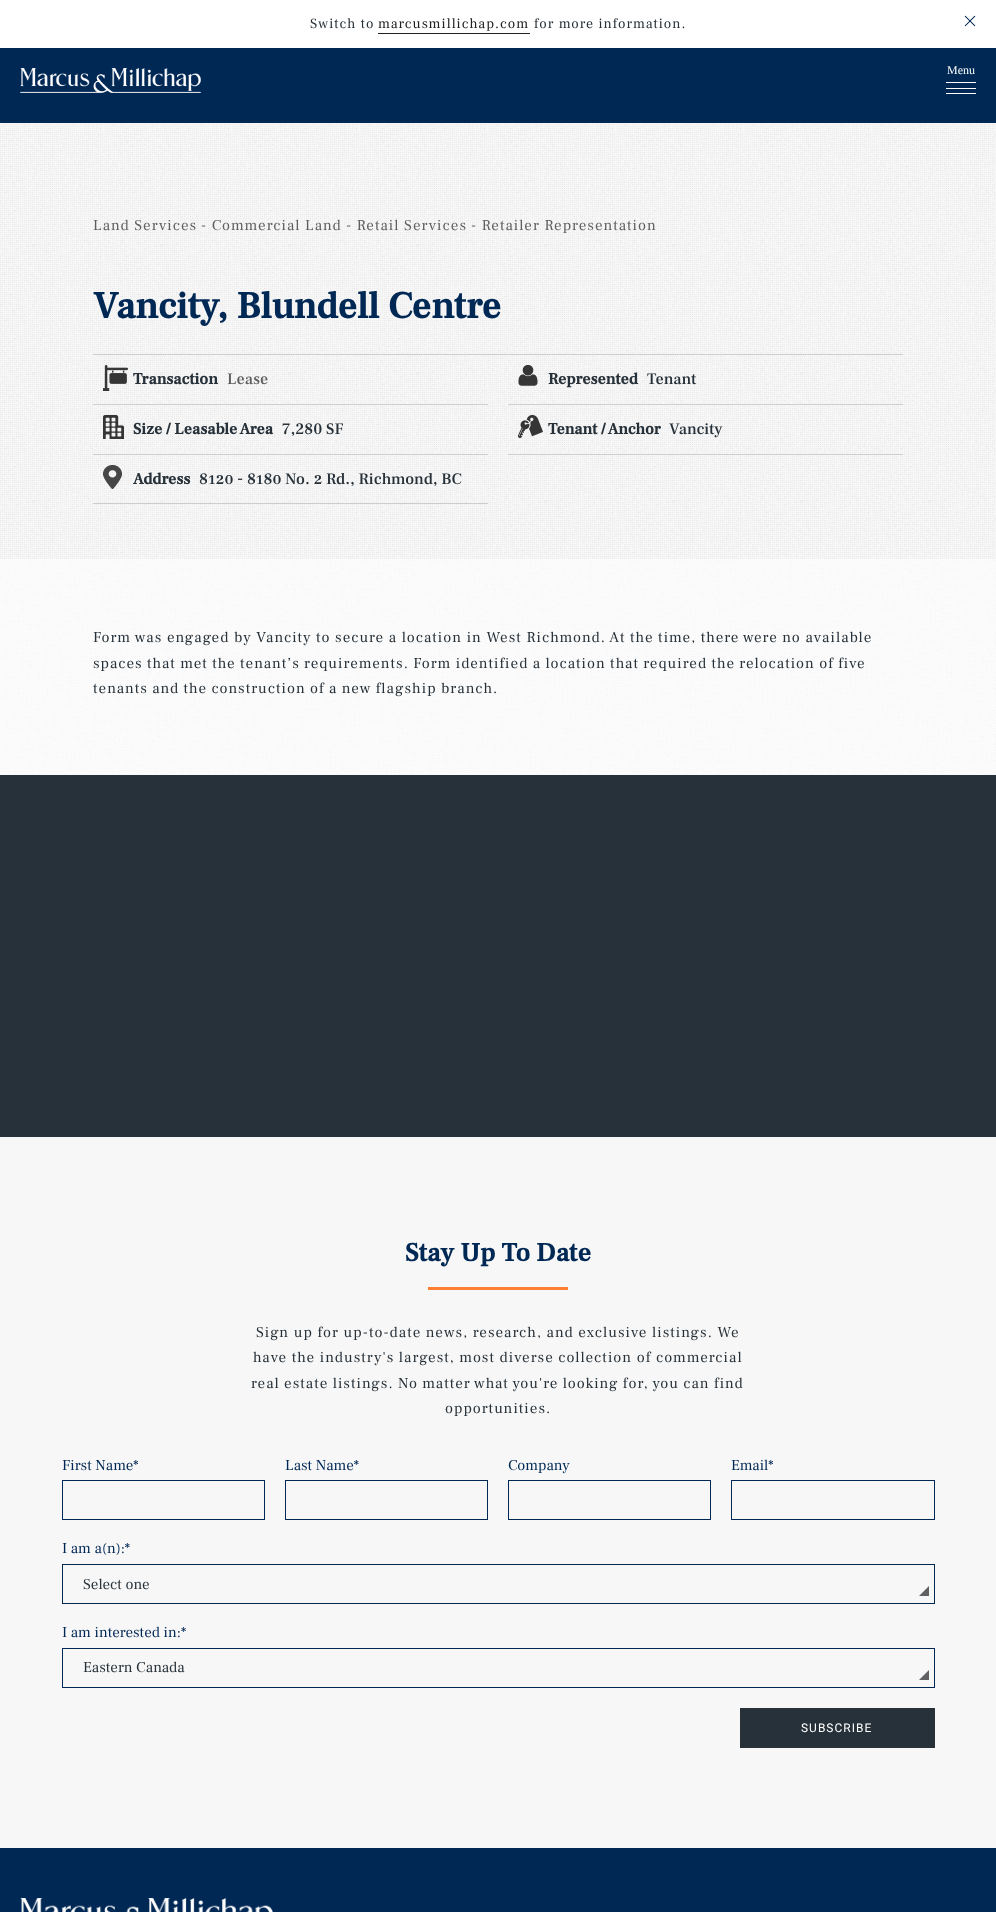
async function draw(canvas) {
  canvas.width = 996
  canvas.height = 1912
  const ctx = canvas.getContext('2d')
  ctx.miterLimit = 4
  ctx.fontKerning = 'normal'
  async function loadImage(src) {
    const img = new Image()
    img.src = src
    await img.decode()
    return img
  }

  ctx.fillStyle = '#fff'
  ctx.fillRect(0, 0, 996, 1912)
  ctx.fillStyle = '#002855'
  ctx.fillRect(0, 48, 996, 75)
  ctx.letterSpacing = '1px'
  ctx.font = '14px Frank Ruhl Libre'
  ctx.fillStyle = '#273139'
  ctx.fillText('Switch to', 310, 28)
  ctx.fillStyle = '#212121'
  ctx.fillText('marcusmillichap.com', 378, 28)
  ctx.fillRect(378, 33, 152, 1)
  ctx.fillStyle = '#273139'
  ctx.fillText('for more information.', 534, 28)
  ctx.drawImage(await loadImage('image0.png'), 964, 15, 12, 12)
  ctx.drawImage(await loadImage('image1.png'), 20, 68, 181, 25)
  ctx.letterSpacing = '0px'
  ctx.font = '12px Liberation Serif'
  ctx.fillStyle = '#fff'
  ctx.fillText('Menu', 947, 74)
  ctx.fillRect(946, 88, 30, 1)
  ctx.fillRect(946, 82, 30, 1)
  ctx.fillRect(946, 93, 30, 1)
  ctx.drawImage(await loadImage('image2.png'), 0, 123, 996, 436)
  ctx.letterSpacing = '1px'
  ctx.font = '15px Frank Ruhl Libre'
  ctx.fillStyle = '#5f5f61'
  ctx.fillText('Land Services', 93, 230)
  ctx.fillText('- Commercial Land', 201, 230)
  ctx.fillText('- Retail Services', 346, 230)
  ctx.fillText('- Retailer Representation', 471, 230)
  ctx.letterSpacing = '0px'
  ctx.font = 'bold 37.75px Frank Ruhl Libre'
  ctx.fillStyle = '#002855'
  ctx.fillText('Vancity, Blundell Centre', 93, 318)
  ctx.fillStyle = '#cccdcf'
  ctx.fillRect(93, 354, 810, 1)
  ctx.fillRect(93, 404, 395, 1)
  ctx.drawImage(await loadImage('image3.png'), 103, 365, 25, 26)
  ctx.font = 'bold 16px Frank Ruhl Libre'
  ctx.fillStyle = '#273139'
  ctx.fillText('Transaction', 133, 384)
  ctx.font = '500 16px Frank Ruhl Libre'
  ctx.fillStyle = '#5f5f61'
  ctx.fillText('Lease', 227, 384)
  ctx.fillStyle = '#cccdcf'
  ctx.fillRect(508, 404, 395, 1)
  ctx.drawImage(await loadImage('image4.png'), 518, 365, 20, 21)
  ctx.font = 'bold 16px Frank Ruhl Libre'
  ctx.fillStyle = '#273139'
  ctx.fillText('Represented', 548, 384)
  ctx.font = '500 16px Frank Ruhl Libre'
  ctx.fillText('Tenant', 647, 384)
  ctx.fillStyle = '#cccdcf'
  ctx.fillRect(93, 454, 395, 1)
  ctx.drawImage(await loadImage('image5.png'), 103, 415, 21, 24)
  ctx.font = 'bold 16px Frank Ruhl Libre'
  ctx.fillStyle = '#273139'
  ctx.fillText('Size / Leasable Area', 133, 434)
  ctx.font = '500 16px Frank Ruhl Libre'
  ctx.fillText('7,280 SF', 282, 434)
  ctx.fillStyle = '#cccdcf'
  ctx.fillRect(508, 454, 395, 1)
  ctx.drawImage(await loadImage('image6.png'), 518, 415, 25, 23)
  ctx.font = 'bold 16px Frank Ruhl Libre'
  ctx.fillStyle = '#273139'
  ctx.fillText('Tenant / Anchor', 548, 434)
  ctx.font = '500 16px Frank Ruhl Libre'
  ctx.fillText('Vancity', 669, 434)
  ctx.fillStyle = '#cccdcf'
  ctx.fillRect(93, 503, 395, 1)
  ctx.drawImage(await loadImage('image7.png'), 103, 465, 19, 24)
  ctx.font = 'bold 16px Frank Ruhl Libre'
  ctx.fillStyle = '#273139'
  ctx.fillText('Address', 133, 484)
  ctx.font = '500 16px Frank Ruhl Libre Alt'
  ctx.fillText('8120 - 8180 No. 2 Rd., Richmond, BC', 199, 484)
  ctx.drawImage(await loadImage('image8.png'), 0, 559, 996, 216)
  ctx.letterSpacing = '1px'
  ctx.font = '15px Frank Ruhl Libre'
  ctx.fillText('Form was engaged by Vancity to secure a location in West Richmond. At the time, there were no available', 93, 642)
  ctx.wordSpacing = '-0.25px'
  ctx.fillText('spaces that met the tenant’s requirements. Form identified a location that required the relocation of five', 93, 668)
  ctx.fillText('tenants and the construction of a new flagship branch.', 93, 693)
  ctx.fillRect(0, 775, 996, 362)
  ctx.fillStyle = '#f7f7f7'
  ctx.fillRect(0, 1137, 996, 711)
  ctx.letterSpacing = '0px'
  ctx.wordSpacing = '0px'
  ctx.font = 'bold 26.25px Frank Ruhl Libre'
  ctx.fillStyle = '#002855'
  ctx.fillText('Stay Up To Date', 405, 1261)
  ctx.fillStyle = '#ff7f32'
  ctx.fillRect(428, 1287, 140, 3)
  ctx.letterSpacing = '1px'
  ctx.font = '15px Frank Ruhl Libre'
  ctx.fillStyle = '#273139'
  ctx.fillText('Sign up for up-to-date news, research, and exclusive listings. We', 256, 1337)
  ctx.fillText('have the industry\'s largest, most diverse collection of commercial', 253, 1362)
  ctx.wordSpacing = '-0.25px'
  ctx.fillText('real estate listings. No matter what you\'re looking for, you can find', 251, 1388)
  ctx.wordSpacing = '0px'
  ctx.fillText('opportunities.', 445, 1413)
  ctx.letterSpacing = '0px'
  ctx.fillStyle = '#002855'
  ctx.fillText('First Name*', 62, 1470)
  ctx.strokeStyle = '#002855'
  ctx.strokeRect(62.5, 1480.5, 202, 39)
  ctx.fillText('Last Name*', 285, 1470)
  ctx.strokeRect(285.5, 1480.5, 202, 39)
  ctx.fillText('Company', 508, 1470)
  ctx.strokeRect(508.5, 1480.5, 202, 39)
  ctx.fillText('Email*', 731, 1470)
  ctx.strokeRect(731.5, 1480.5, 203, 39)
  ctx.fillText('I am a(n):*', 62, 1553)
  ctx.drawImage(await loadImage('image9.png'), 919, 1586, 10, 10)
  ctx.strokeRect(62.5, 1564.5, 872, 39)
  ctx.fillStyle = '#273139'
  ctx.fillText('Select one', 83, 1589)
  ctx.fillStyle = '#002855'
  ctx.fillText('I am interested in:*', 62, 1637)
  ctx.drawImage(await loadImage('image9.png'), 919, 1670, 10, 10)
  ctx.strokeRect(62.5, 1648.5, 872, 39)
  ctx.fillStyle = '#273139'
  ctx.fillText('Eastern Canada', 83, 1672)
  ctx.fillRect(740, 1708, 195, 40)
  ctx.letterSpacing = '1px'
  ctx.font = '12px Roboto'
  ctx.fillStyle = '#fff'
  ctx.fillText('SUBSCRIBE', 801, 1732)
  ctx.fillStyle = '#002855'
  ctx.fillRect(0, 1848, 996, 64)
  ctx.drawImage(await loadImage('image10.png'), 20, 1898, 253, 14)
}

draw(document.querySelector('canvas'))
